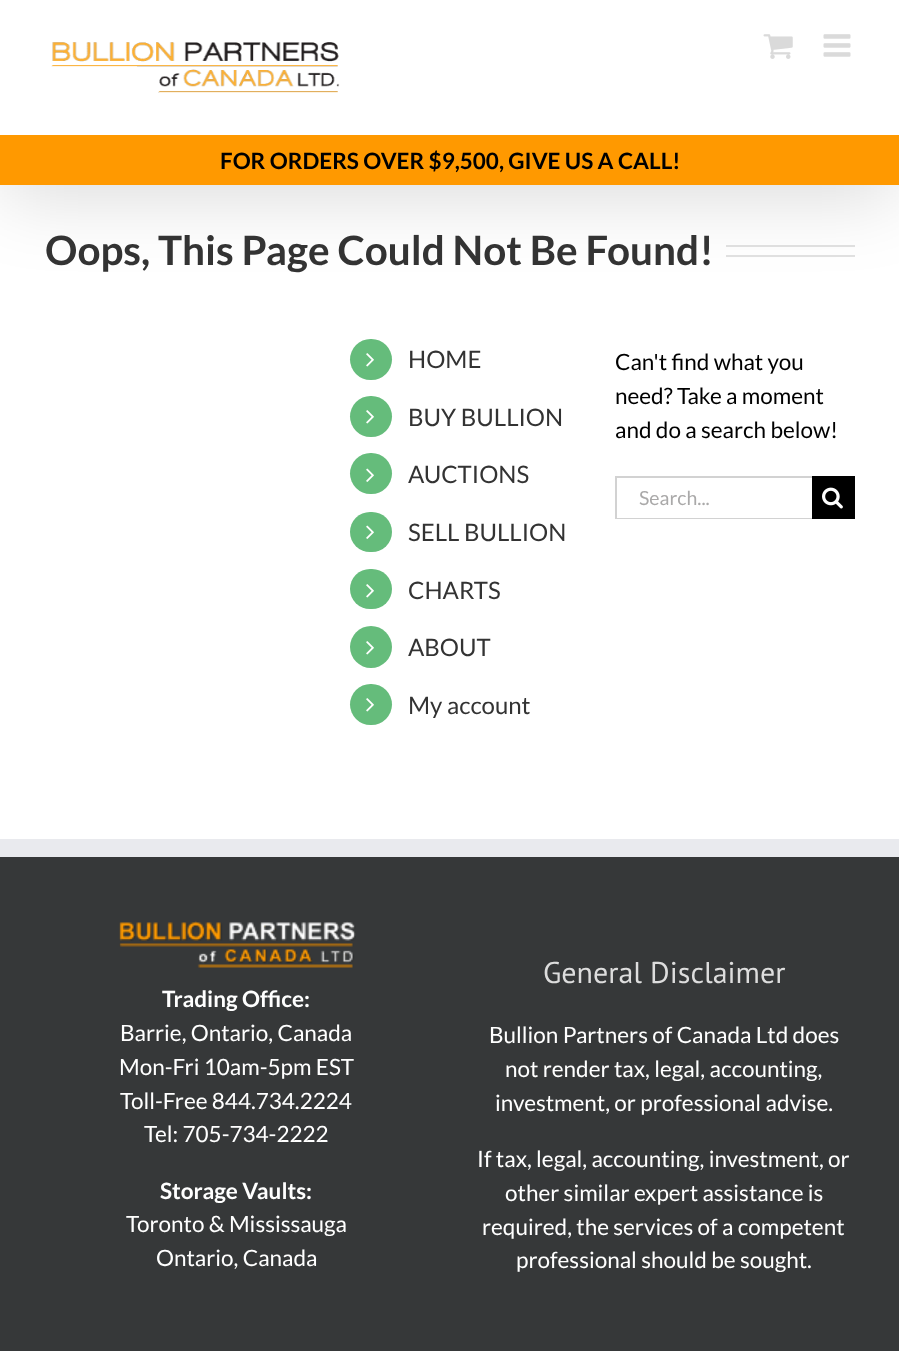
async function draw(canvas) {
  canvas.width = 899
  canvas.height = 1351
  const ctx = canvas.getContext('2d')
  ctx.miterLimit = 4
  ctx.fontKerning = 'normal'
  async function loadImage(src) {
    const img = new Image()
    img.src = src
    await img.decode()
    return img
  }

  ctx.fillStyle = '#fff'
  ctx.fillRect(0, 0, 899, 1351)
  ctx.fillStyle = '#e2e2e2'
  ctx.fillRect(726, 245, 129, 2)
  ctx.fillRect(726, 255, 129, 2)
  ctx.fillStyle = '#00000024'
  ctx.filter = 'blur(37.5px)'
  ctx.beginPath()
  ctx.rect(3, 18, 894, 179)
  ctx.fill()
  ctx.filter = 'none'
  ctx.fillStyle = '#fff'
  ctx.fillRect(0, 0, 899, 135)
  ctx.drawImage(await loadImage('image0.png'), 51, 42, 289, 51)
  ctx.drawImage(await loadImage('image1.png'), 763, 34, 30, 25)
  ctx.drawImage(await loadImage('image2.png'), 823, 34, 28, 23)
  ctx.fillStyle = '#f90'
  ctx.fillRect(0, 135, 899, 50)
  ctx.font = 'bold 22.5px Lato'
  ctx.fillStyle = '#000'
  ctx.fillText('FOR ORDERS OVER $9,500, GIVE US A CALL!', 220, 169)
  ctx.font = 'bold 40.5px Lato'
  ctx.fillStyle = '#333'
  ctx.fillText('Oops, This Page Could Not Be Found!', 45, 265)
  ctx.fillStyle = '#65bc7b'
  ctx.beginPath()
  ctx.roundRect(350, 339, 42, 41, 20.5)
  ctx.fill()
  ctx.drawImage(await loadImage('image3.png'), 366, 353, 8, 14)
  ctx.font = '24px Lato'
  ctx.fillStyle = '#333'
  ctx.fillText('HOME', 408, 368)
  ctx.fillStyle = '#65bc7b'
  ctx.beginPath()
  ctx.roundRect(350, 396, 42, 41, 20.5)
  ctx.fill()
  ctx.drawImage(await loadImage('image3.png'), 366, 410, 8, 14)
  ctx.fillStyle = '#333'
  ctx.fillText('BUY BULLION', 408, 426)
  ctx.fillStyle = '#65bc7b'
  ctx.beginPath()
  ctx.roundRect(350, 453, 42, 41, 20.5)
  ctx.fill()
  ctx.drawImage(await loadImage('image4.png'), 366, 468, 8, 14)
  ctx.fillStyle = '#333'
  ctx.fillText('AUCTIONS', 408, 483)
  ctx.fillStyle = '#65bc7b'
  ctx.beginPath()
  ctx.roundRect(350, 512, 42, 40, 20)
  ctx.fill()
  ctx.drawImage(await loadImage('image4.png'), 366, 525, 8, 14)
  ctx.fillStyle = '#333'
  ctx.fillText('SELL BULLION', 408, 541)
  ctx.fillStyle = '#65bc7b'
  ctx.beginPath()
  ctx.roundRect(350, 569, 42, 40, 20)
  ctx.fill()
  ctx.drawImage(await loadImage('image3.png'), 366, 584, 8, 14)
  ctx.fillStyle = '#333'
  ctx.fillText('CHARTS', 408, 599)
  ctx.fillStyle = '#65bc7b'
  ctx.beginPath()
  ctx.arc(371, 647, 21, 0, 2 * Math.PI)
  ctx.fill()
  ctx.drawImage(await loadImage('image3.png'), 366, 641, 8, 14)
  ctx.fillStyle = '#333'
  ctx.fillText('ABOUT', 408, 656)
  ctx.fillStyle = '#65bc7b'
  ctx.beginPath()
  ctx.roundRect(350, 684, 42, 41, 20.5)
  ctx.fill()
  ctx.drawImage(await loadImage('image3.png'), 366, 698, 8, 14)
  ctx.fillStyle = '#333'
  ctx.fillText('My account', 408, 714)
  ctx.font = '22.5px Lato'
  ctx.fillStyle = '#000'
  ctx.fillText('Can\'t find what you', 615, 370)
  ctx.fillText('need? Take a moment', 615, 404)
  ctx.fillText('and do a search below!', 615, 438)
  ctx.fillStyle = '#d2d2d2'
  ctx.fillRect(615, 476, 197, 2)
  ctx.fillRect(615, 518, 197, 1)
  ctx.fillRect(615, 476, 2, 43)
  ctx.font = '19.5px Lato'
  ctx.fillStyle = '#aaa9a9'
  ctx.fillText('Search...', 639, 505)
  ctx.fillStyle = '#000'
  ctx.fillRect(812, 476, 43, 43)
  ctx.drawImage(await loadImage('image5.png'), 822, 487, 21, 22)
  ctx.fillStyle = '#363839'
  ctx.fillRect(0, 857, 899, 494)
  ctx.fillStyle = '#e9eaee'
  ctx.fillRect(0, 839, 899, 18)
  ctx.drawImage(await loadImage('image6.png'), 119, 921, 237, 47)
  ctx.font = 'bold 22.5px Lato'
  ctx.fillStyle = '#fff'
  ctx.fillText('Trading Office:', 162, 1007)
  ctx.font = '22.5px Lato'
  ctx.fillText('Barrie, Ontario, Canada', 120, 1041)
  ctx.fillText('Mon-Fri 10am-5pm EST', 119, 1075)
  ctx.fillText('Toll-Free 844.734.2224', 120, 1109)
  ctx.fillText('Tel: 705-734-2222', 144, 1142)
  ctx.font = 'bold 22.5px Lato'
  ctx.fillText('Storage Vaults:', 160, 1199)
  ctx.font = '22.5px Lato'
  ctx.fillText('Toronto & Mississauga', 126, 1232)
  ctx.fillText('Ontario, Canada', 156, 1266)
  ctx.font = '30px PT Sans'
  ctx.fillStyle = '#ddd'
  ctx.fillText('General Disclaimer', 543, 983)
  ctx.font = '22.5px Lato'
  ctx.fillStyle = '#fff'
  ctx.fillText('Bullion Partners of Canada Ltd does', 489, 1043)
  ctx.fillText('not render tax, legal, accounting,', 505, 1077)
  ctx.fillText('investment, or professional advise.', 495, 1111)
  ctx.fillText('If tax, legal, accounting, investment, or', 477, 1167)
  ctx.fillText('other similar expert assistance is', 505, 1201)
  ctx.fillText('required, the services of a competent', 482, 1235)
  ctx.fillText('professional should be sought.', 516, 1268)
}

draw(document.querySelector('canvas'))
